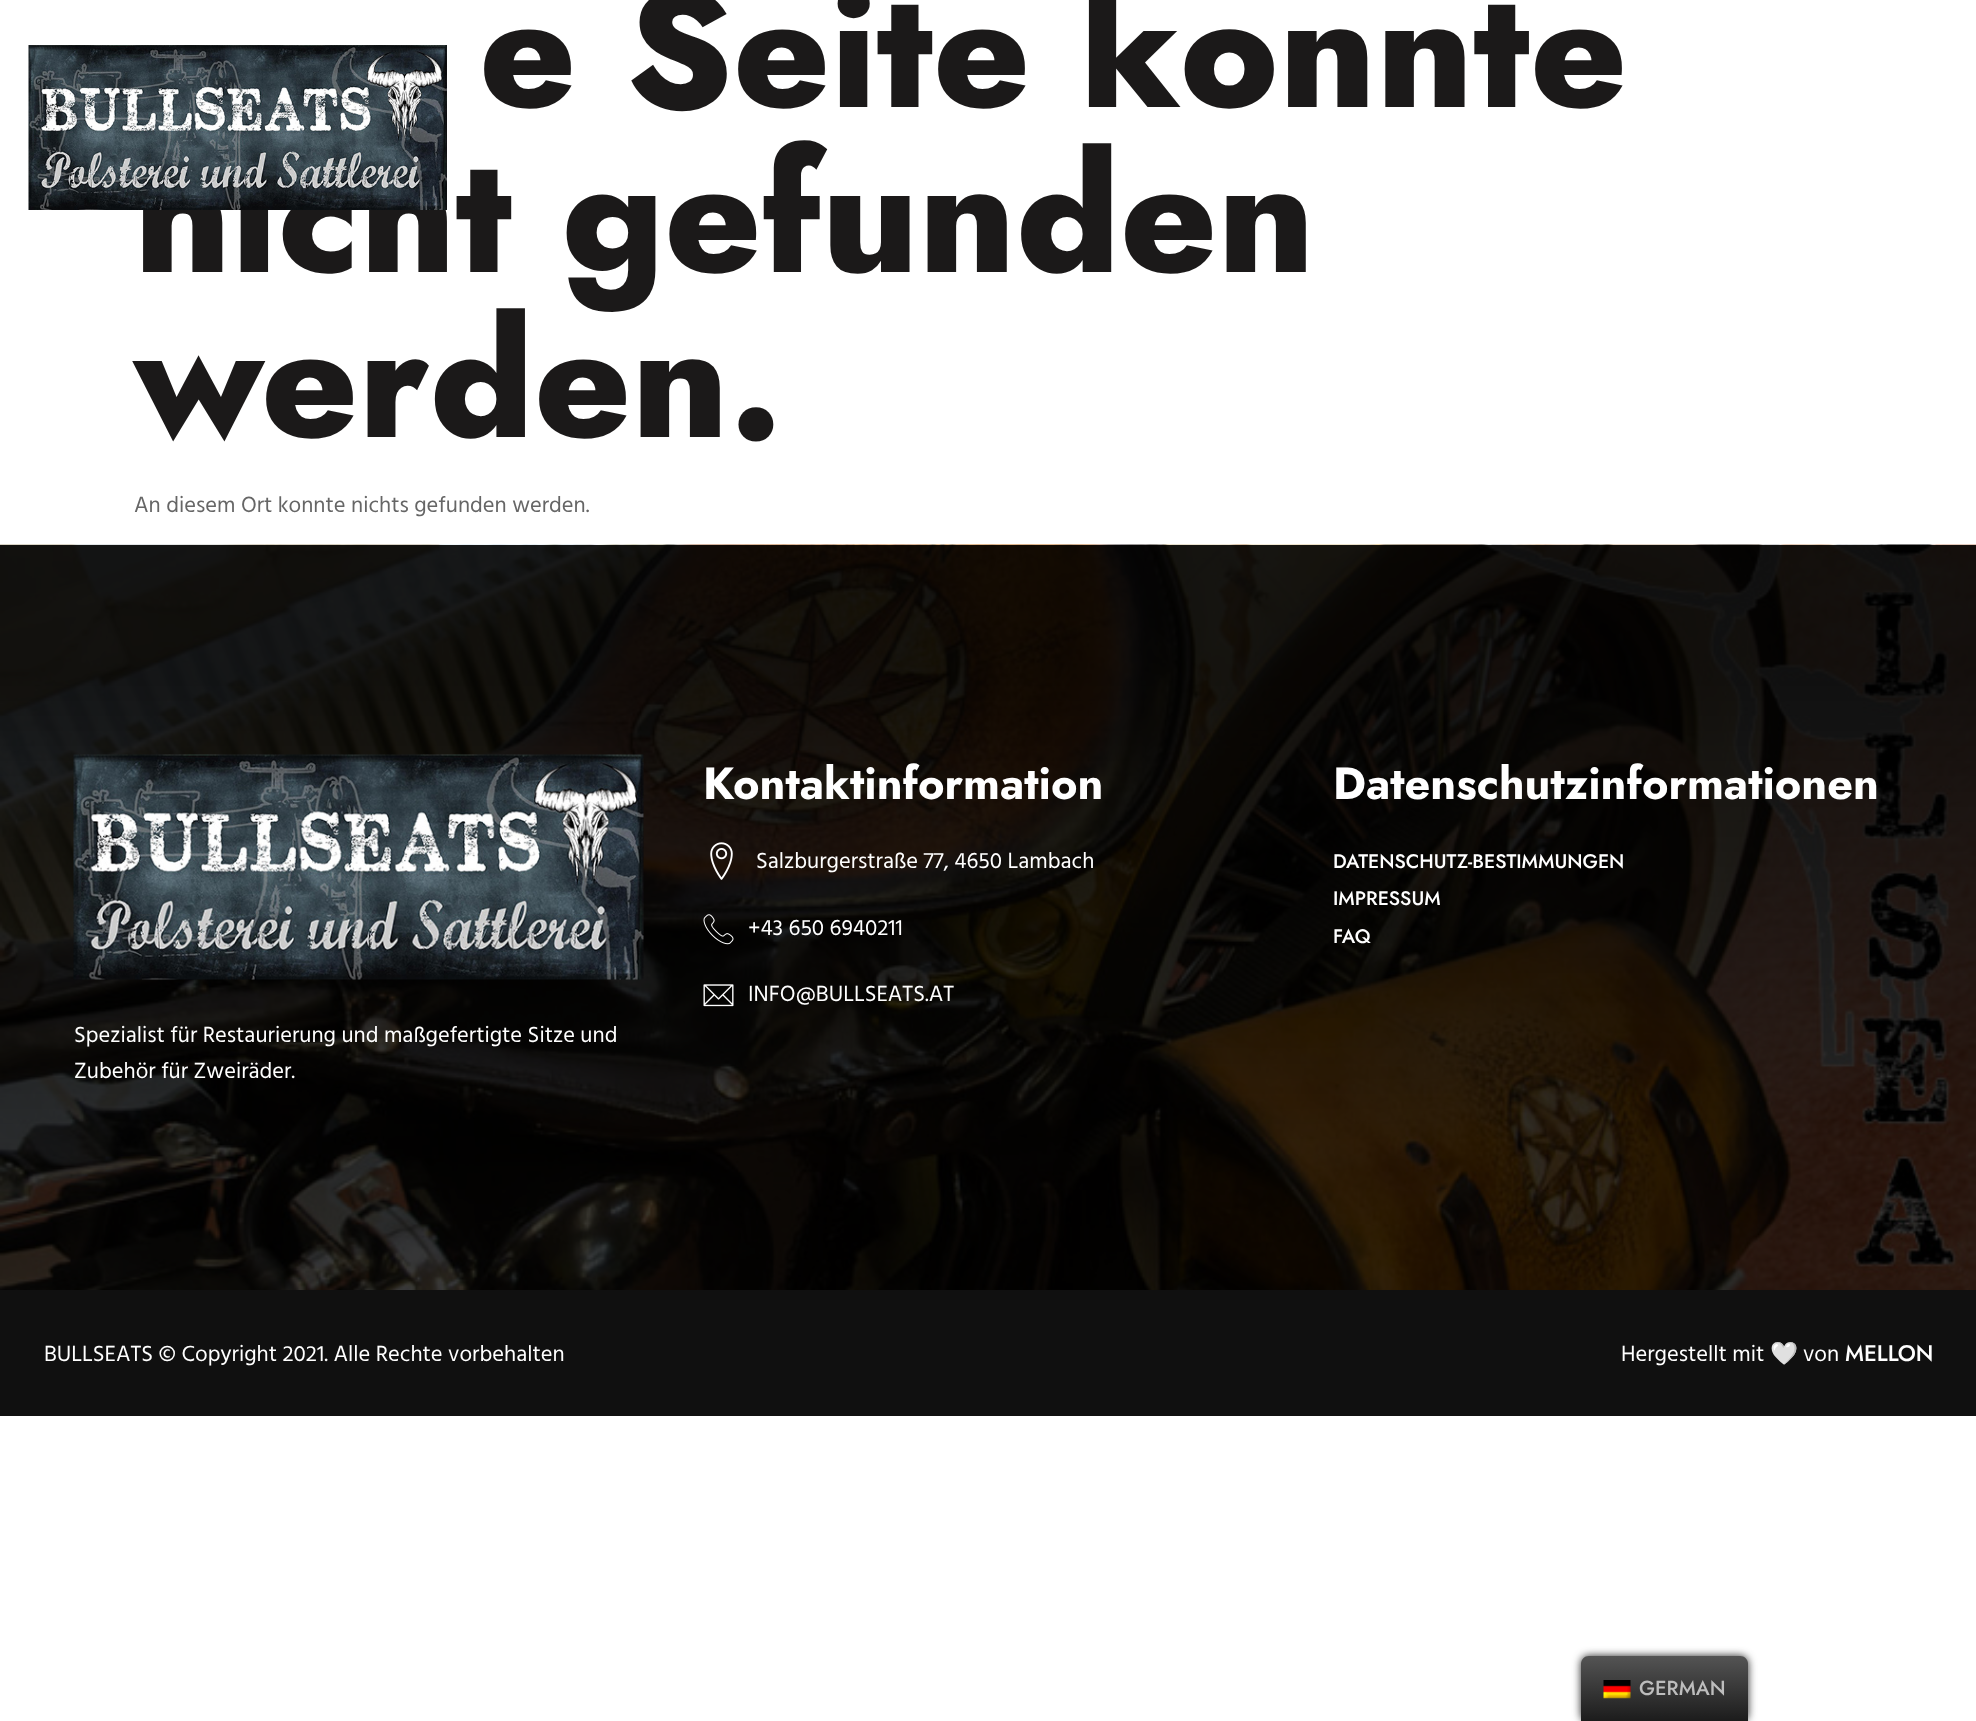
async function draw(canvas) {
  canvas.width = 1976
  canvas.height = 1721
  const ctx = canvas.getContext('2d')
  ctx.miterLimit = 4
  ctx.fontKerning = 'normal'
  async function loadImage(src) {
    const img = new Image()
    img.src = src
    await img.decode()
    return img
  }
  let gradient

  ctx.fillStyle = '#fff'
  ctx.fillRect(0, 0, 1976, 1721)
  ctx.font = '800 165px Jost'
  ctx.fillStyle = '#1b1919'
  ctx.fillText('e Seite konnte', 479, 107)
  ctx.fillText('nicht gefunden', 134, 272)
  ctx.fillText('werden.', 134, 437)
  ctx.font = '22.5px Hind Vadodara'
  ctx.fillStyle = '#666'
  ctx.fillText('An diesem Ort konnte nichts gefunden werden.', 134, 512)
  ctx.drawImage(await loadImage('image0.png'), 28, 45, 419, 165)
  ctx.drawImage(await loadImage('image1.png'), 0, 544, 1976, 746)
  ctx.font = 'bold 45px Jost'
  ctx.fillStyle = '#fff'
  ctx.fillText('Kontaktinformation', 703, 799)
  ctx.drawImage(await loadImage('image2.png'), 710, 842, 23, 38)
  ctx.font = '22.5px Hind Vadodara'
  ctx.fillText('Salzburgerstraße 77, 4650 Lambach', 756, 868)
  ctx.drawImage(await loadImage('image3.png'), 703, 914, 31, 31)
  ctx.fillText('+43 650 6940211', 748, 935)
  ctx.drawImage(await loadImage('image4.png'), 703, 984, 31, 23)
  ctx.fillText('INFO@BULLSEATS.AT', 748, 1001)
  ctx.font = 'bold 45px Jost'
  ctx.fillText('Datenschutzinformationen', 1333, 799)
  ctx.font = '500 19.5px Jost'
  ctx.fillText('DATENSCHUTZ-BESTIMMUNGEN', 1333, 868)
  ctx.fillText('IMPRESSUM', 1333, 905)
  ctx.fillText('FAQ', 1333, 943)
  ctx.drawImage(await loadImage('image5.png'), 73, 754, 571, 226)
  ctx.font = '22.5px Hind Vadodara'
  ctx.fillText('Spezialist für Restaurierung und maßgefertigte Sitze und', 74, 1042)
  ctx.fillText('Zubehör für Zweiräder.', 74, 1078)
  ctx.fillStyle = '#101010'
  ctx.fillRect(0, 1290, 1976, 126)
  ctx.fillStyle = '#fff'
  ctx.fillText('BULLSEATS © Copyright 2021. Alle Rechte vorbehalten', 44, 1361)
  ctx.fillText('Hergestellt mit', 1621, 1361)
  ctx.font = '22.5px Noto Color Emoji'
  ctx.fillText('🤍', 1770, 1361)
  ctx.font = '22.5px Hind Vadodara'
  ctx.fillText('von', 1803, 1361)
  ctx.font = '500 22.5px Jost'
  ctx.fillText('MELLON', 1845, 1361)
  ctx.fillStyle = '#212121'
  ctx.filter = 'blur(4px)'
  ctx.beginPath()
  ctx.roundRect(1581, 1656, 167, 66, 8)
  ctx.fill()
  ctx.filter = 'none'
  gradient = ctx.createLinearGradient(1664, 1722, 1664, 1656)
  gradient.addColorStop(0, '#1b1b1b')
  gradient.addColorStop(1, '#545454')
  ctx.fillStyle = gradient
  ctx.beginPath()
  ctx.moveTo(1589, 1656)
  ctx.lineTo(1740, 1656)
  ctx.bezierCurveTo(1744.5, 1656, 1748, 1659.5, 1748, 1664)
  ctx.lineTo(1748, 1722)
  ctx.lineTo(1581, 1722)
  ctx.lineTo(1581, 1664)
  ctx.bezierCurveTo(1581, 1659.5, 1584.5, 1656, 1589, 1656)
  ctx.closePath()
  ctx.fill()
  ctx.drawImage(await loadImage('image6.png'), 1603, 1680, 28, 19)
  ctx.font = '500 20.25px Jost'
  ctx.fillStyle = '#bdbdbd'
  ctx.fillText('GERMAN', 1639, 1695)
}

draw(document.querySelector('canvas'))
